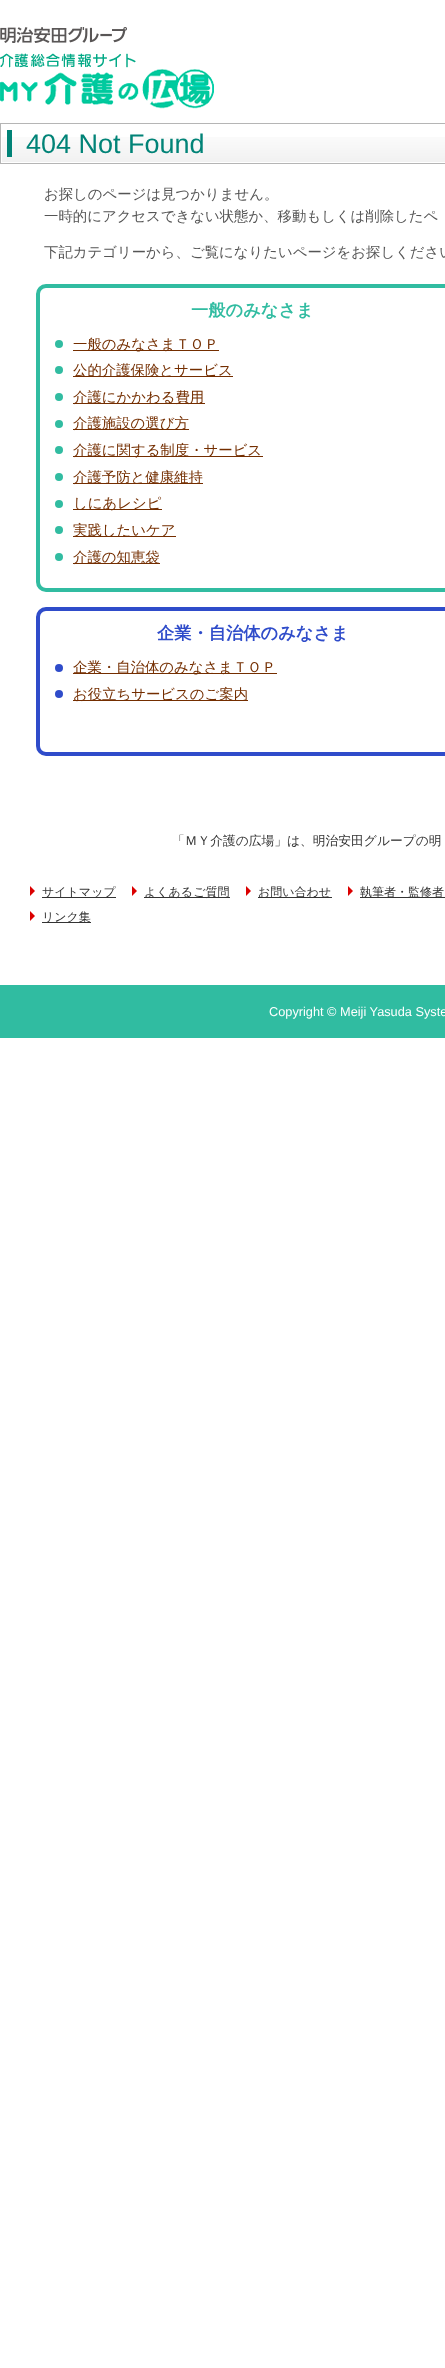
async function draw(canvas) {
  canvas.width = 445
  canvas.height = 2368
  const ctx = canvas.getContext('2d')
  ctx.miterLimit = 4
  ctx.fontKerning = 'normal'
  async function loadImage(src) {
    const img = new Image()
    img.src = src
    await img.decode()
    return img
  }

  ctx.fillStyle = '#fff'
  ctx.fillRect(0, 0, 445, 2368)
  ctx.drawImage(await loadImage('image0.png'), 0, 27, 214, 82)
  ctx.drawImage(await loadImage('image1.png'), 2, 137, 443, 25)
  ctx.strokeStyle = '#b5b5b5'
  ctx.strokeRect(0.5, 123.5, 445, 40)
  ctx.fillStyle = '#018377'
  ctx.fillRect(7, 130, 5, 27)
  ctx.font = '27px Liberation Sans'
  ctx.fillText('404 Not Found', 26, 153)
  ctx.font = '500 14.4px WenQuanYi Zen Hei'
  ctx.fillStyle = '#555'
  ctx.fillText('お探しのページは見つかりません。', 44, 199)
  ctx.fillText('一時的にアクセスできない状態か、移動もしくは削除したペ', 44, 221)
  ctx.fillText('下記カテゴリーから、ご覧になりたいページをお探しください', 44, 257)
  ctx.beginPath()
  ctx.roundRect(38, 286, 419, 304, 8)
  ctx.strokeStyle = '#31bca1'
  ctx.lineWidth = 4
  ctx.stroke()
  ctx.font = 'bold 17.25px WenQuanYi Zen Hei'
  ctx.fillStyle = '#31bca1'
  ctx.fillText('一般のみなさま', 191, 316)
  ctx.beginPath()
  ctx.arc(59, 344, 4, 0, 2 * Math.PI)
  ctx.fill()
  ctx.fillStyle = '#742e00'
  ctx.fillRect(73, 350, 146, 1)
  ctx.font = '500 14.4px WenQuanYi Zen Hei'
  ctx.fillText('一般のみなさまＴＯＰ', 73, 349)
  ctx.fillStyle = '#31bca1'
  ctx.beginPath()
  ctx.arc(59, 370, 4, 0, 2 * Math.PI)
  ctx.fill()
  ctx.fillStyle = '#742e00'
  ctx.fillRect(73, 376, 160, 1)
  ctx.fillText('公的介護保険とサービス', 73, 375)
  ctx.fillStyle = '#31bca1'
  ctx.beginPath()
  ctx.arc(59, 397, 4, 0, 2 * Math.PI)
  ctx.fill()
  ctx.fillStyle = '#742e00'
  ctx.fillRect(73, 403, 132, 1)
  ctx.fillText('介護にかかわる費用', 73, 402)
  ctx.fillStyle = '#31bca1'
  ctx.beginPath()
  ctx.arc(59, 424, 4, 0, 2 * Math.PI)
  ctx.fill()
  ctx.fillStyle = '#742e00'
  ctx.fillRect(73, 429, 116, 1)
  ctx.fillText('介護施設の選び方', 73, 428)
  ctx.fillStyle = '#31bca1'
  ctx.beginPath()
  ctx.arc(59, 450, 4, 0, 2 * Math.PI)
  ctx.fill()
  ctx.fillStyle = '#742e00'
  ctx.fillRect(73, 456, 190, 1)
  ctx.fillText('介護に関する制度・サービス', 73, 455)
  ctx.fillStyle = '#31bca1'
  ctx.beginPath()
  ctx.arc(59, 477, 4, 0, 2 * Math.PI)
  ctx.fill()
  ctx.fillStyle = '#742e00'
  ctx.fillRect(73, 483, 130, 1)
  ctx.fillText('介護予防と健康維持', 73, 482)
  ctx.fillStyle = '#31bca1'
  ctx.beginPath()
  ctx.arc(59, 504, 4, 0, 2 * Math.PI)
  ctx.fill()
  ctx.fillStyle = '#742e00'
  ctx.fillRect(73, 509, 89, 1)
  ctx.fillText('しにあレシピ', 73, 508)
  ctx.fillStyle = '#31bca1'
  ctx.beginPath()
  ctx.arc(59, 530, 4, 0, 2 * Math.PI)
  ctx.fill()
  ctx.fillStyle = '#742e00'
  ctx.fillRect(73, 536, 103, 1)
  ctx.fillText('実践したいケア', 73, 535)
  ctx.fillStyle = '#31bca1'
  ctx.beginPath()
  ctx.arc(59, 557, 4, 0, 2 * Math.PI)
  ctx.fill()
  ctx.fillStyle = '#742e00'
  ctx.fillRect(73, 563, 87, 1)
  ctx.fillText('介護の知恵袋', 73, 562)
  ctx.beginPath()
  ctx.roundRect(38, 609, 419, 145, 8)
  ctx.strokeStyle = '#2f4cca'
  ctx.stroke()
  ctx.font = 'bold 17.25px WenQuanYi Zen Hei'
  ctx.fillStyle = '#2f4cca'
  ctx.fillText('企業・自治体のみなさま', 157, 639)
  ctx.beginPath()
  ctx.arc(59, 668, 4, 0, 2 * Math.PI)
  ctx.fill()
  ctx.fillStyle = '#742e00'
  ctx.fillRect(73, 673, 204, 1)
  ctx.font = '500 14.4px WenQuanYi Zen Hei'
  ctx.fillText('企業・自治体のみなさまＴＯＰ', 73, 672)
  ctx.fillStyle = '#2f4cca'
  ctx.beginPath()
  ctx.arc(59, 694, 4, 0, 2 * Math.PI)
  ctx.fill()
  ctx.fillStyle = '#742e00'
  ctx.fillRect(73, 700, 175, 1)
  ctx.fillText('お役立ちサービスのご案内', 73, 699)
  ctx.font = '500 12.75px WenQuanYi Zen Hei'
  ctx.fillStyle = '#333'
  ctx.fillText('「ＭＹ介護の広場」は、明治安田グループの明', 172, 845)
  ctx.fillStyle = '#db0000'
  ctx.beginPath()
  ctx.moveTo(30, 896)
  ctx.lineTo(30, 886)
  ctx.lineTo(35, 891)
  ctx.closePath()
  ctx.fill()
  ctx.fillStyle = '#333'
  ctx.fillRect(42, 897, 74, 1)
  ctx.font = '500 12px WenQuanYi Zen Hei'
  ctx.fillText('サイトマップ', 42, 896)
  ctx.fillStyle = '#db0000'
  ctx.beginPath()
  ctx.moveTo(132, 896)
  ctx.lineTo(132, 886)
  ctx.lineTo(137, 891)
  ctx.closePath()
  ctx.fill()
  ctx.fillStyle = '#333'
  ctx.fillRect(144, 897, 86, 1)
  ctx.fillText('よくあるご質問', 144, 896)
  ctx.fillStyle = '#db0000'
  ctx.beginPath()
  ctx.moveTo(246, 896)
  ctx.lineTo(246, 886)
  ctx.lineTo(251, 891)
  ctx.closePath()
  ctx.fill()
  ctx.fillStyle = '#333'
  ctx.fillRect(258, 897, 74, 1)
  ctx.fillText('お問い合わせ', 258, 896)
  ctx.fillStyle = '#db0000'
  ctx.beginPath()
  ctx.moveTo(348, 896)
  ctx.lineTo(348, 886)
  ctx.lineTo(353, 891)
  ctx.closePath()
  ctx.fill()
  ctx.fillStyle = '#333'
  ctx.fillRect(360, 897, 85, 1)
  ctx.fillText('執筆者・監修者', 360, 896)
  ctx.fillStyle = '#db0000'
  ctx.beginPath()
  ctx.moveTo(30, 921)
  ctx.lineTo(30, 911)
  ctx.lineTo(35, 916)
  ctx.closePath()
  ctx.fill()
  ctx.fillStyle = '#333'
  ctx.fillRect(42, 922, 49, 1)
  ctx.fillText('リンク集', 42, 921)
  ctx.fillStyle = '#30bca1'
  ctx.fillRect(0, 985, 445, 53)
  ctx.font = '12.75px Liberation Sans'
  ctx.fillStyle = '#fff'
  ctx.fillText('Copyright © Meiji Yasuda Syste', 269, 1016)
}

draw(document.querySelector('canvas'))
